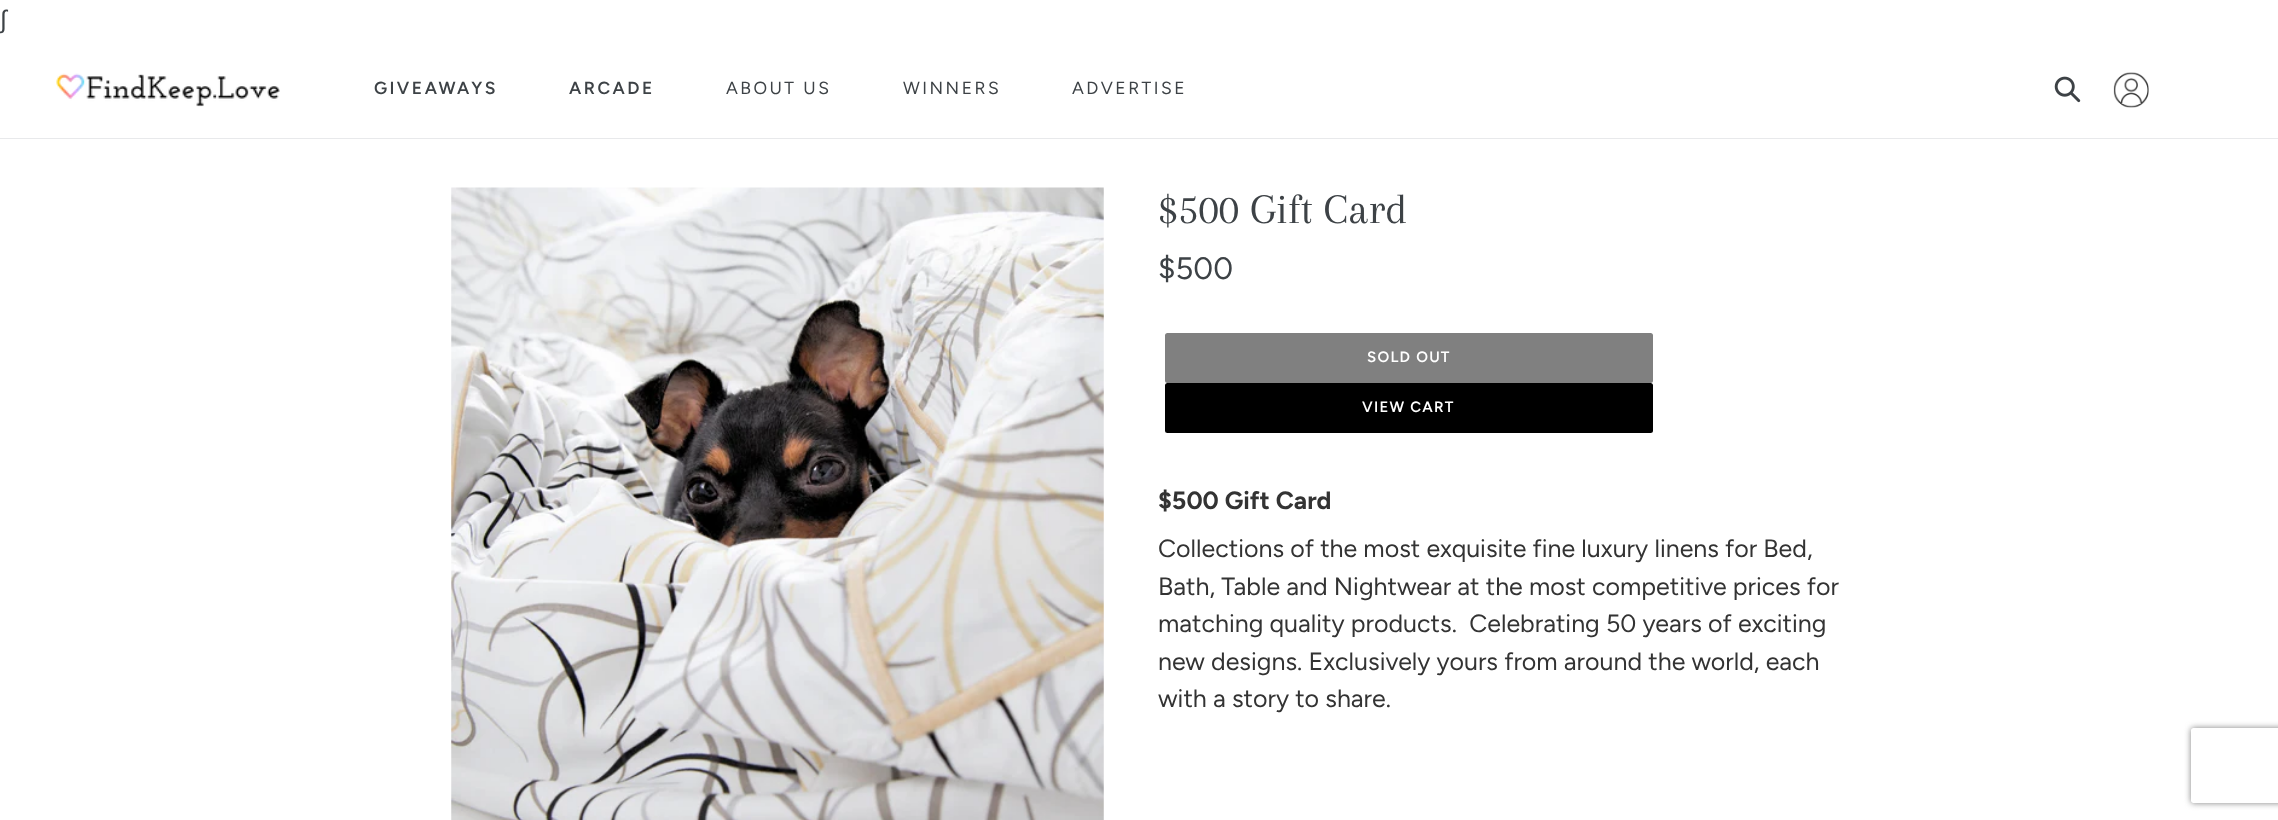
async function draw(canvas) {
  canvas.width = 2278
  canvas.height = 820
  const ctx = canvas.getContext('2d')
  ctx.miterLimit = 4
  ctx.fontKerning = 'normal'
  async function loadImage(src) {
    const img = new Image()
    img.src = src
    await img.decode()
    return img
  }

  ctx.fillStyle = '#fff'
  ctx.fillRect(0, 0, 2278, 820)
  ctx.font = '25px Liberation Sans'
  ctx.fillStyle = '#3d4246'
  ctx.fillText('∫', 0, 28)
  ctx.fillStyle = '#e8e9eb'
  ctx.fillRect(0, 138, 2278, 1)
  ctx.drawImage(await loadImage('image0.png'), 56, 73, 224, 34)
  ctx.letterSpacing = '2.5px'
  ctx.font = '600 17.5px Figtree'
  ctx.fillStyle = '#3d4246'
  ctx.fillText('GIVEAWAYS', 374, 94)
  ctx.fillText('ARCADE', 569, 94)
  ctx.font = '17.5px Figtree'
  ctx.fillText('ABOUT US', 726, 94)
  ctx.fillText('WINNERS', 903, 94)
  ctx.fillText('ADVERTISE', 1072, 94)
  ctx.drawImage(await loadImage('image1.png'), 2054, 76, 27, 27)
  ctx.drawImage(await loadImage('image2.png'), 2113, 72, 36, 36)
  ctx.drawImage(await loadImage('image3.png'), 451, 187, 653, 633)
  ctx.letterSpacing = '0px'
  ctx.font = '43.75px Arapey'
  ctx.fillText('$500 Gift Card', 1158, 223)
  ctx.font = '31px Figtree'
  ctx.fillText('$500', 1158, 279)
  ctx.fillStyle = '#808080'
  ctx.beginPath()
  ctx.roundRect(1165, 333, 488, 50, 2.5)
  ctx.fill()
  ctx.letterSpacing = '1.25px'
  ctx.font = '600 15px Figtree'
  ctx.fillStyle = '#fff'
  ctx.fillText('SOLD OUT', 1367, 362)
  ctx.fillStyle = '#000'
  ctx.beginPath()
  ctx.roundRect(1165, 383, 488, 50, 2.5)
  ctx.fill()
  ctx.fillStyle = '#fff'
  ctx.fillText('VIEW CART', 1362, 412)
  ctx.letterSpacing = '0px'
  ctx.font = 'bold 25px Figtree'
  ctx.fillStyle = '#333'
  ctx.fillText('$500 Gift Card', 1158, 509)
  ctx.font = '25px Figtree'
  ctx.fillText('Collections of the most exquisite fine luxury linens for Bed,', 1158, 557)
  ctx.fillText('Bath, Table and Nightwear at the most competitive prices for', 1158, 595)
  ctx.fillText('matching quality products.  Celebrating 50 years of exciting', 1158, 632)
  ctx.fillText('new designs. Exclusively yours from around the world, each', 1158, 670)
  ctx.fillText('with a story to share.', 1158, 707)
  ctx.save()
  ctx.beginPath()
  ctx.moveTo(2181, 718)
  ctx.lineTo(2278, 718)
  ctx.lineTo(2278, 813)
  ctx.lineTo(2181, 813)
  ctx.closePath()
  ctx.moveTo(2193.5, 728)
  ctx.lineTo(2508.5, 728)
  ctx.bezierCurveTo(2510, 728, 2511, 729, 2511, 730.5)
  ctx.lineTo(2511, 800.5)
  ctx.bezierCurveTo(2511, 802, 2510, 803, 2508.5, 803)
  ctx.lineTo(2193.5, 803)
  ctx.bezierCurveTo(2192, 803, 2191, 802, 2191, 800.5)
  ctx.lineTo(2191, 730.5)
  ctx.bezierCurveTo(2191, 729, 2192, 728, 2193.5, 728)
  ctx.closePath()
  ctx.clip('evenodd')
  ctx.fillStyle = '#808080'
  ctx.filter = 'blur(3px)'
  ctx.beginPath()
  ctx.roundRect(2191, 728, 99, 75, 2.5)
  ctx.fill()
  ctx.filter = 'none'
  ctx.restore()
}

draw(document.querySelector('canvas'))
